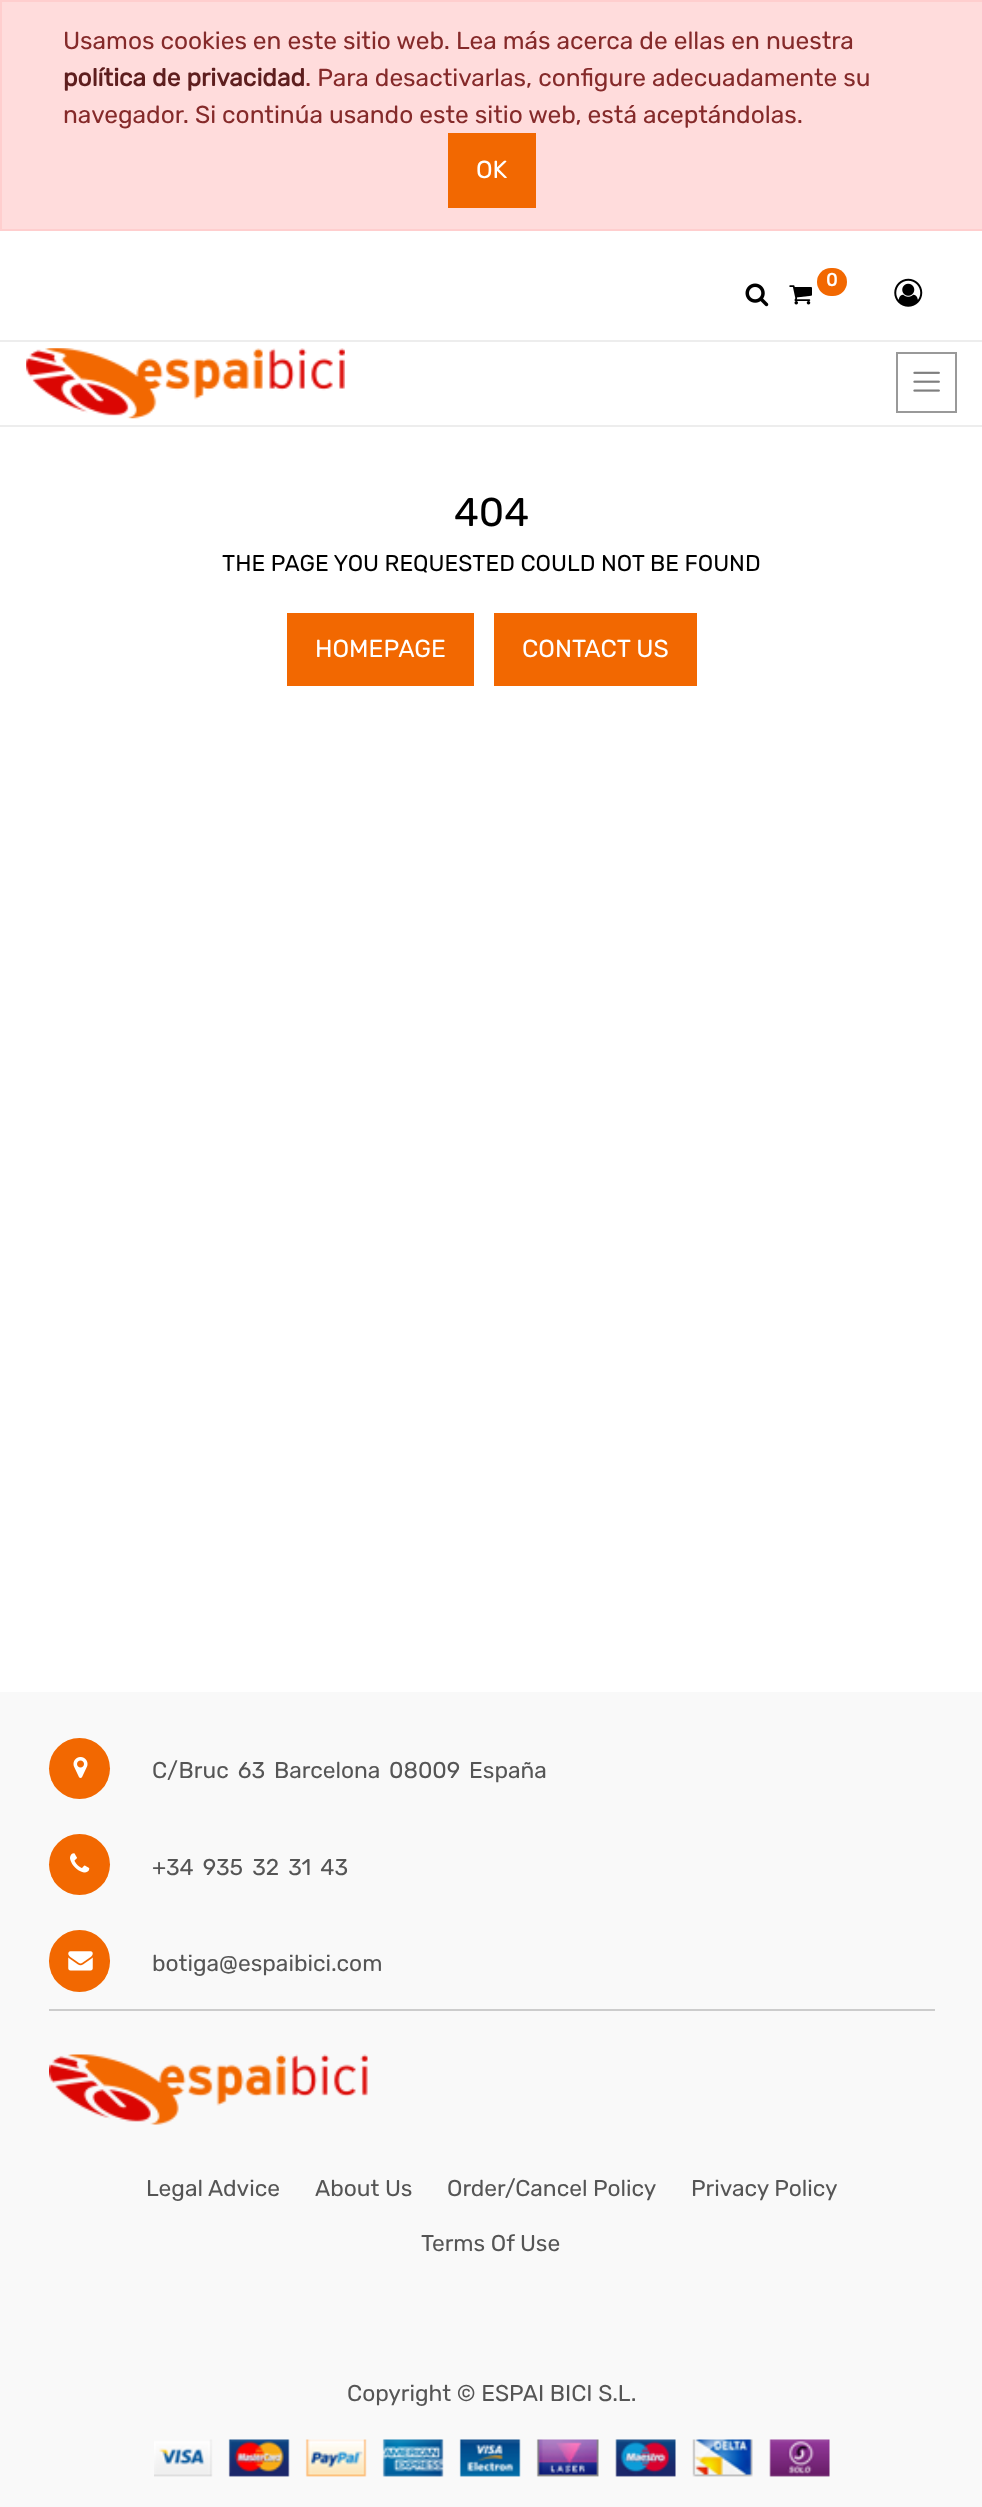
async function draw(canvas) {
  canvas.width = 982
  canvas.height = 2507
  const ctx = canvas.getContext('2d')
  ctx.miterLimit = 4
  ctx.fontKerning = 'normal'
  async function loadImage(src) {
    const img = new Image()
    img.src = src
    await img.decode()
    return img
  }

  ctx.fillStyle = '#fff'
  ctx.fillRect(0, 0, 982, 2507)
  ctx.fillStyle = '#ffdcdc'
  ctx.beginPath()
  ctx.rect(1, 1, 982, 229)
  ctx.fill()
  ctx.strokeStyle = '#ffcece'
  ctx.lineWidth = 2
  ctx.stroke()
  ctx.font = '300 24.5px Rubik'
  ctx.fillStyle = '#852a2a'
  ctx.fillText('Usamos cookies en este sitio web. Lea más acerca de ellas en nuestra', 63, 49)
  ctx.font = 'bold 24.5px Rubik'
  ctx.fillStyle = '#5e1e1e'
  ctx.fillText('política de privacidad', 63, 86)
  ctx.font = '300 24.5px Rubik'
  ctx.fillStyle = '#852a2a'
  ctx.fillText('. Para desactivarlas, configure adecuadamente su', 305, 86)
  ctx.fillText('navegador. Si continúa usando este sitio web, está aceptándolas.', 63, 123)
  ctx.fillStyle = '#f26801'
  ctx.fillRect(448, 133, 88, 75)
  ctx.fillStyle = '#fff'
  ctx.fillText('OK', 476, 178)
  ctx.drawImage(await loadImage('image0.png'), 745, 283, 24, 24)
  ctx.fillStyle = '#f26801'
  ctx.beginPath()
  ctx.roundRect(817, 268, 30, 28, 14)
  ctx.fill()
  ctx.font = 'bold 18px Rubik'
  ctx.fillStyle = '#fff'
  ctx.fillText('0', 826, 286)
  ctx.drawImage(await loadImage('image1.png'), 789, 285, 23, 20)
  ctx.drawImage(await loadImage('image2.png'), 894, 278, 29, 29)
  ctx.fillStyle = '#ededed'
  ctx.fillRect(0, 340, 982, 2)
  ctx.fillRect(0, 425, 982, 2)
  ctx.drawImage(await loadImage('image3.png'), 26, 348, 319, 71)
  ctx.strokeStyle = '#999'
  ctx.strokeRect(897, 353, 59, 59)
  ctx.drawImage(await loadImage('image4.png'), 913, 371, 27, 21)
  ctx.font = '300 40px Rubik'
  ctx.fillStyle = '#000'
  ctx.fillText('404', 454, 526)
  ctx.font = '300 22.75px Rubik'
  ctx.fillText('THE PAGE YOU REQUESTED COULD NOT BE FOUND', 222, 571)
  ctx.fillStyle = '#f26801'
  ctx.fillRect(287, 613, 187, 73)
  ctx.font = '300 24.5px Rubik'
  ctx.fillStyle = '#fff'
  ctx.fillText('HOMEPAGE', 315, 657)
  ctx.fillStyle = '#f26801'
  ctx.fillRect(494, 613, 203, 73)
  ctx.fillStyle = '#fff'
  ctx.fillText('CONTACT US', 522, 657)
  ctx.fillStyle = '#f9f9f9'
  ctx.fillRect(0, 1692, 982, 815)
  ctx.fillStyle = '#f26801'
  ctx.beginPath()
  ctx.arc(79.5, 1768.5, 30.5, 0, 2 * Math.PI)
  ctx.fill()
  ctx.drawImage(await loadImage('image5.png'), 73, 1757, 15, 21)
  ctx.wordSpacing = '3.5px'
  ctx.font = '300 22.75px Rubik'
  ctx.fillStyle = '#555'
  ctx.fillText('C/Bruc 63', 152, 1778)
  ctx.wordSpacing = '0px'
  ctx.fillText('Barcelona', 274, 1778)
  ctx.fillText('08009', 389, 1778)
  ctx.fillText('España', 469, 1778)
  ctx.fillStyle = '#f26801'
  ctx.beginPath()
  ctx.arc(79.5, 1864.5, 30.5, 0, 2 * Math.PI)
  ctx.fill()
  ctx.drawImage(await loadImage('image6.png'), 70, 1853, 20, 20)
  ctx.wordSpacing = '3.5px'
  ctx.fillStyle = '#555'
  ctx.fillText('+34 935 32 31 43', 152, 1875)
  ctx.fillStyle = '#f26801'
  ctx.beginPath()
  ctx.roundRect(49, 1930, 61, 62, 30.5)
  ctx.fill()
  ctx.drawImage(await loadImage('image7.png'), 68, 1951, 25, 20)
  ctx.wordSpacing = '0px'
  ctx.fillStyle = '#555'
  ctx.fillText('botiga@espaibici.com', 152, 1971)
  ctx.fillStyle = '#ccc'
  ctx.fillRect(49, 2009, 886, 2)
  ctx.drawImage(await loadImage('image8.png'), 49, 2054, 319, 71)
  ctx.fillStyle = '#555'
  ctx.fillText('Legal Advice', 146, 2196)
  ctx.fillText('About Us', 315, 2196)
  ctx.fillText('Order/Cancel Policy', 447, 2196)
  ctx.fillText('Privacy Policy', 691, 2196)
  ctx.fillText('Terms Of Use', 421, 2251)
  ctx.fillText('Copyright © ESPAI BICI S.L.', 347, 2401)
  ctx.drawImage(await loadImage('image9.png'), 154, 2439, 676, 38)
}

draw(document.querySelector('canvas'))
